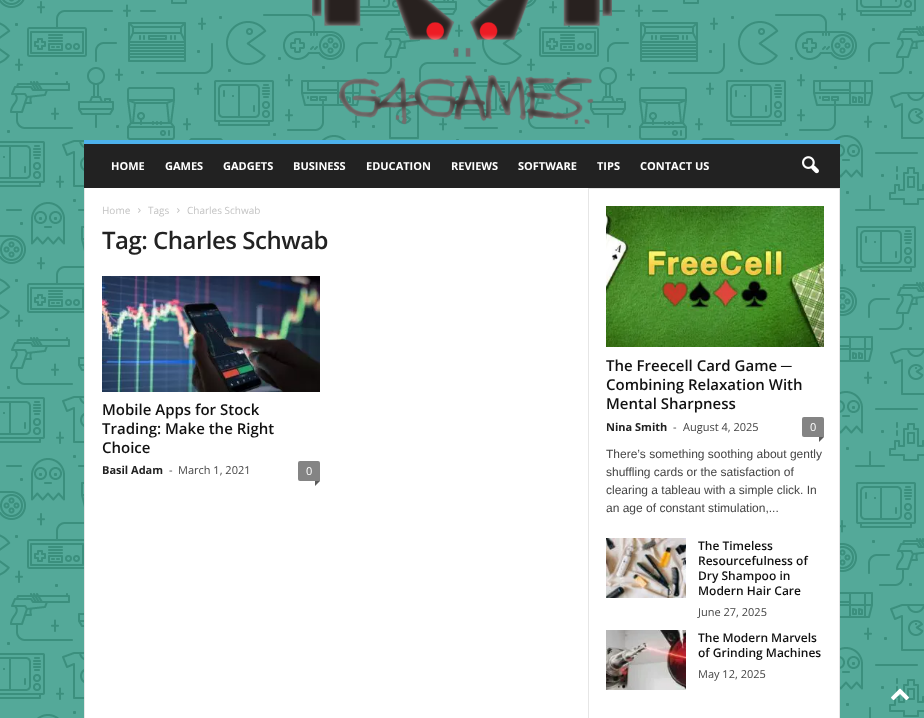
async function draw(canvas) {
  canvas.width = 924
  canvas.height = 718
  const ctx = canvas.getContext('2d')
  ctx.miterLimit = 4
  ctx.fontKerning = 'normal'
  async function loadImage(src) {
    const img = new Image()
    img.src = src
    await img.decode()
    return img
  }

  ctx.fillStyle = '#fff'
  ctx.fillRect(0, 0, 924, 718)
  ctx.drawImage(await loadImage('image0.png'), 0, 0, 924, 718)
  ctx.drawImage(await loadImage('image1.png'), 312, 0, 300, 125)
  ctx.fillStyle = '#222'
  ctx.fillRect(84, 144, 756, 44)
  ctx.fillStyle = '#4db2ec'
  ctx.fillRect(84, 140, 756, 4)
  ctx.font = 'bold 11px Open Sans'
  ctx.fillStyle = '#fff'
  ctx.fillText('HOME', 111, 170)
  ctx.fillText('GAMES', 165, 170)
  ctx.fillText('GADGETS', 223, 170)
  ctx.fillText('BUSINESS', 293, 170)
  ctx.fillText('EDUCATION', 366, 170)
  ctx.fillText('REVIEWS', 451, 170)
  ctx.fillText('SOFTWARE', 518, 170)
  ctx.fillText('TIPS', 597, 170)
  ctx.fillText('CONTACT US', 640, 170)
  ctx.drawImage(await loadImage('image2.png'), 802, 156, 17, 18)
  ctx.fillRect(85, 188, 754, 530)
  ctx.fillStyle = '#e6e6e6'
  ctx.fillRect(84, 188, 1, 530)
  ctx.font = '10px Open Sans'
  ctx.fillStyle = '#c3c3c3'
  ctx.fillText('Home', 102, 214)
  ctx.drawImage(await loadImage('image3.png'), 138, 208, 3, 5)
  ctx.fillText('Tags', 148, 214)
  ctx.drawImage(await loadImage('image3.png'), 177, 208, 3, 5)
  ctx.fillText('Charles Schwab', 187, 214)
  ctx.letterSpacing = '-0.5px'
  ctx.font = '600 24px Open Sans'
  ctx.fillStyle = '#222'
  ctx.fillText('Tag: Charles Schwab', 102, 249)
  ctx.drawImage(await loadImage('image4.png'), 102, 276, 218, 116)
  ctx.letterSpacing = '0px'
  ctx.font = '600 15px Open Sans'
  ctx.fillStyle = '#111'
  ctx.fillText('Mobile Apps for Stock', 102, 415)
  ctx.fillText('Trading: Make the Right', 102, 434)
  ctx.fillText('Choice', 102, 453)
  ctx.font = 'bold 11px Open Sans'
  ctx.fillStyle = '#222'
  ctx.fillText('Basil Adam', 102, 474)
  ctx.font = '11px Open Sans'
  ctx.fillStyle = '#444'
  ctx.fillText('-', 169, 474)
  ctx.fillText('March 1, 2021', 178, 474)
  ctx.fillStyle = '#848484'
  ctx.beginPath()
  ctx.roundRect(298, 461, 22, 20, [2, 2, 0, 2])
  ctx.fill()
  ctx.fillStyle = '#fff'
  ctx.fillText('0', 306, 475)
  ctx.fillStyle = '#5b5b5b'
  ctx.beginPath()
  ctx.moveTo(315, 481)
  ctx.lineTo(320, 481)
  ctx.lineTo(315, 486)
  ctx.closePath()
  ctx.fill()
  ctx.fillStyle = '#e6e6e6'
  ctx.fillRect(588, 188, 1, 530)
  ctx.fillRect(839, 188, 1, 530)
  ctx.fillRect(589, 188, 251, 1)
  ctx.drawImage(await loadImage('image5.png'), 606, 206, 218, 141)
  ctx.font = '600 15px Open Sans'
  ctx.fillStyle = '#111'
  ctx.fillText('The Freecell Card Game', 606, 371)
  ctx.font = 'bold 15px Liberation Sans'
  ctx.fillText('─', 781, 371)
  ctx.font = '600 15px Open Sans'
  ctx.fillText('Combining Relaxation With', 606, 390)
  ctx.fillText('Mental Sharpness', 606, 409)
  ctx.font = 'bold 11px Open Sans'
  ctx.fillStyle = '#222'
  ctx.fillText('Nina Smith', 606, 431)
  ctx.font = '11px Open Sans'
  ctx.fillStyle = '#444'
  ctx.fillText('-', 673, 431)
  ctx.fillText('August 4, 2025', 683, 431)
  ctx.fillStyle = '#848484'
  ctx.beginPath()
  ctx.roundRect(802, 417, 22, 20, [2, 2, 0, 2])
  ctx.fill()
  ctx.fillStyle = '#fff'
  ctx.fillText('0', 810, 431)
  ctx.fillStyle = '#5b5b5b'
  ctx.beginPath()
  ctx.moveTo(819, 437)
  ctx.lineTo(824, 437)
  ctx.lineTo(819, 442)
  ctx.closePath()
  ctx.fill()
  ctx.font = '12px Liberation Sans'
  ctx.fillStyle = '#444'
  ctx.fillText('There’s something soothing about gently', 606, 458)
  ctx.fillText('shuffling cards or the satisfaction of', 606, 476)
  ctx.fillText('clearing a tableau with a simple click. In', 606, 494)
  ctx.fillText('an age of constant stimulation,...', 606, 512)
  ctx.drawImage(await loadImage('image6.png'), 606, 538, 80, 60)
  ctx.font = '600 12px Open Sans'
  ctx.fillStyle = '#111'
  ctx.fillText('The Timeless', 698, 550)
  ctx.fillText('Resourcefulness of', 698, 565)
  ctx.fillText('Dry Shampoo in', 698, 580)
  ctx.fillText('Modern Hair Care', 698, 595)
  ctx.font = '11px Open Sans'
  ctx.fillStyle = '#444'
  ctx.fillText('June 27, 2025', 698, 616)
  ctx.drawImage(await loadImage('image7.png'), 606, 630, 80, 60)
  ctx.font = '600 12px Open Sans'
  ctx.fillStyle = '#111'
  ctx.fillText('The Modern Marvels', 698, 642)
  ctx.fillText('of Grinding Machines', 698, 657)
  ctx.font = '11px Open Sans'
  ctx.fillStyle = '#444'
  ctx.fillText('May 12, 2025', 698, 678)
  ctx.drawImage(await loadImage('image8.png'), 891, 688, 18, 13)
}

draw(document.querySelector('canvas'))
